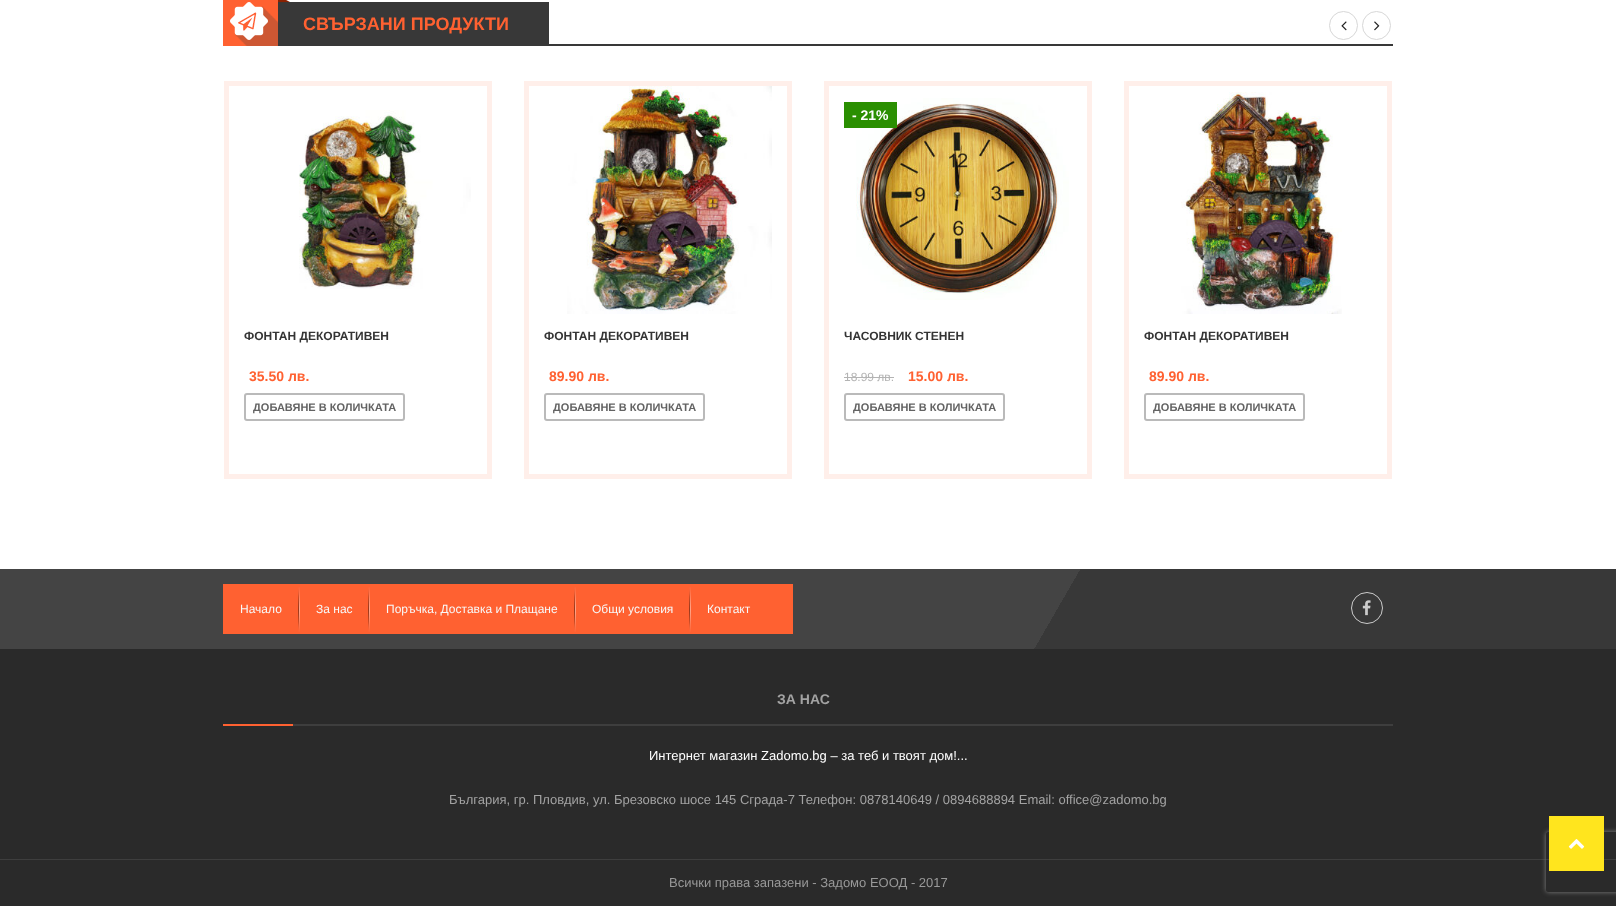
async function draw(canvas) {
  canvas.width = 1616
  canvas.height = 906
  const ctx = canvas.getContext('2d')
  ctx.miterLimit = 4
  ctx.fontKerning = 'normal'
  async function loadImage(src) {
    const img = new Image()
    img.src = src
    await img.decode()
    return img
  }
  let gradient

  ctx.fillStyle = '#fff'
  ctx.fillRect(0, 0, 1616, 906)
  ctx.fillStyle = '#383838'
  ctx.fillRect(278, 2, 271, 42)
  ctx.fillRect(278, 44, 1115, 2)
  ctx.drawImage(await loadImage('image0.png'), 223, 0, 67, 46)
  ctx.font = 'bold 18px Liberation Sans'
  ctx.fillStyle = '#ff6131'
  ctx.fillText('СВЪРЗАНИ ПРОДУКТИ', 303, 30)
  ctx.beginPath()
  ctx.arc(1343.5, 25.5, 14, 0, 2 * Math.PI)
  ctx.strokeStyle = '#d7d7d7'
  ctx.stroke()
  ctx.drawImage(await loadImage('image1.png'), 1341, 21, 6, 10)
  ctx.beginPath()
  ctx.arc(1376.5, 25.5, 14, 0, 2 * Math.PI)
  ctx.stroke()
  ctx.drawImage(await loadImage('image2.png'), 1374, 21, 6, 10)
  ctx.strokeStyle = '#ffefea'
  ctx.lineWidth = 5
  ctx.strokeRect(226.5, 83.5, 263, 393)
  ctx.drawImage(await loadImage('image3.png'), 299, 110, 172, 179)
  ctx.font = 'bold 12px Liberation Sans'
  ctx.fillStyle = '#343434'
  ctx.fillText('ФОНТАН ДЕКОРАТИВЕН', 244, 340)
  ctx.font = 'bold 14px Liberation Sans'
  ctx.fillStyle = '#ff6131'
  ctx.fillText('35.50 лв.', 249, 381)
  ctx.beginPath()
  ctx.roundRect(245, 394, 159, 26, 2)
  ctx.strokeStyle = '#bababa'
  ctx.lineWidth = 2
  ctx.stroke()
  ctx.font = 'bold 11px Liberation Sans'
  ctx.fillStyle = '#636363'
  ctx.fillText('ДОБАВЯНЕ В КОЛИЧКАТА', 253, 411)
  ctx.strokeStyle = '#ffefea'
  ctx.lineWidth = 5
  ctx.strokeRect(526.5, 83.5, 263, 393)
  ctx.drawImage(await loadImage('image4.png'), 567, 86, 205, 228)
  ctx.font = 'bold 12px Liberation Sans'
  ctx.fillStyle = '#343434'
  ctx.fillText('ФОНТАН ДЕКОРАТИВЕН', 544, 340)
  ctx.font = 'bold 14px Liberation Sans'
  ctx.fillStyle = '#ff6131'
  ctx.fillText('89.90 лв.', 549, 381)
  ctx.beginPath()
  ctx.roundRect(545, 394, 159, 26, 2)
  ctx.strokeStyle = '#bababa'
  ctx.lineWidth = 2
  ctx.stroke()
  ctx.font = 'bold 11px Liberation Sans'
  ctx.fillStyle = '#636363'
  ctx.fillText('ДОБАВЯНЕ В КОЛИЧКАТА', 553, 411)
  ctx.strokeStyle = '#ffefea'
  ctx.lineWidth = 5
  ctx.strokeRect(826.5, 83.5, 263, 393)
  ctx.drawImage(await loadImage('image5.png'), 856, 98, 213, 202)
  ctx.fillStyle = '#2a8f01'
  ctx.fillRect(844, 102, 53, 26)
  ctx.font = 'bold 14px Liberation Sans'
  ctx.fillStyle = '#fff'
  ctx.fillText('- 21%', 852, 120)
  ctx.font = 'bold 12px Liberation Sans'
  ctx.fillStyle = '#343434'
  ctx.fillText('ЧАСОВНИК СТЕНЕН', 844, 340)
  ctx.font = '12px Liberation Sans'
  ctx.fillStyle = '#b3b3b3'
  ctx.fillText('18.99 лв.', 844, 381)
  ctx.fillRect(844, 377, 50, 1)
  ctx.font = 'bold 14px Liberation Sans'
  ctx.fillStyle = '#ff6131'
  ctx.fillText('15.00 лв.', 908, 381)
  ctx.beginPath()
  ctx.roundRect(845, 394, 159, 26, 2)
  ctx.strokeStyle = '#bababa'
  ctx.lineWidth = 2
  ctx.stroke()
  ctx.font = 'bold 11px Liberation Sans'
  ctx.fillStyle = '#636363'
  ctx.fillText('ДОБАВЯНЕ В КОЛИЧКАТА', 853, 411)
  ctx.strokeStyle = '#ffefea'
  ctx.lineWidth = 5
  ctx.strokeRect(1126.5, 83.5, 263, 393)
  ctx.drawImage(await loadImage('image6.png'), 1181, 92, 161, 222)
  ctx.font = 'bold 12px Liberation Sans'
  ctx.fillStyle = '#343434'
  ctx.fillText('ФОНТАН ДЕКОРАТИВЕН', 1144, 340)
  ctx.font = 'bold 14px Liberation Sans'
  ctx.fillStyle = '#ff6131'
  ctx.fillText('89.90 лв.', 1149, 381)
  ctx.beginPath()
  ctx.roundRect(1145, 394, 159, 26, 2)
  ctx.strokeStyle = '#bababa'
  ctx.lineWidth = 2
  ctx.stroke()
  ctx.font = 'bold 11px Liberation Sans'
  ctx.fillStyle = '#636363'
  ctx.fillText('ДОБАВЯНЕ В КОЛИЧКАТА', 1153, 411)
  gradient = ctx.createLinearGradient(185, 249, 1431, 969)
  gradient.addColorStop(0.65, '#444')
  gradient.addColorStop(0.65, '#383838')
  ctx.fillStyle = gradient
  ctx.fillRect(0, 569, 1616, 80)
  ctx.fillStyle = '#ff6131'
  ctx.fillRect(223, 584, 570, 50)
  ctx.font = '12px Liberation Sans'
  ctx.fillStyle = '#f8f8f8'
  ctx.fillText('Начало', 240, 613)
  ctx.drawImage(await loadImage('image7.png'), 298, 587, 2, 45)
  ctx.fillText('За нас', 316, 613)
  ctx.drawImage(await loadImage('image7.png'), 368, 587, 2, 45)
  ctx.fillText('Поръчка, Доставка и Плащане', 386, 613)
  ctx.drawImage(await loadImage('image7.png'), 574, 587, 2, 45)
  ctx.fillText('Общи условия', 592, 613)
  ctx.drawImage(await loadImage('image7.png'), 689, 587, 2, 45)
  ctx.fillText('Контакт', 707, 613)
  ctx.beginPath()
  ctx.arc(1367, 608, 15.5, 0, 2 * Math.PI)
  ctx.strokeStyle = '#cbcbcb'
  ctx.lineWidth = 1
  ctx.stroke()
  ctx.drawImage(await loadImage('image8.png'), 1362, 600, 9, 16)
  ctx.fillStyle = '#2a2a2a'
  ctx.fillRect(0, 649, 1616, 210)
  ctx.fillStyle = '#3e3e3e'
  ctx.fillRect(293, 724, 1100, 2)
  ctx.font = 'bold 14px Liberation Sans'
  ctx.fillStyle = '#a3a3a3'
  ctx.fillText('ЗА НАС', 777, 704)
  ctx.fillStyle = '#ff6131'
  ctx.fillRect(223, 724, 70, 2)
  ctx.font = '13px Liberation Sans'
  ctx.fillStyle = '#fff'
  ctx.fillText('Интернет магазин Zadomo.bg – за теб и твоят дом!...', 649, 760)
  ctx.fillStyle = '#a3a3a3'
  ctx.fillText('България, гр. Пловдив, ул. Брезовско шосе 145 Сграда-7 Телефон: 0878140649 / 0894688894 Email: office@zadomo.bg', 449, 804)
  ctx.fillStyle = '#2a2a2a'
  ctx.fillRect(0, 860, 1616, 46)
  ctx.fillStyle = '#3e3e3e'
  ctx.fillRect(0, 859, 1616, 1)
  ctx.fillStyle = '#999'
  ctx.fillText('Всички права запазени - Задомо ЕООД - 2017', 669, 887)
  ctx.save()
  ctx.beginPath()
  ctx.moveTo(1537, 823)
  ctx.lineTo(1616, 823)
  ctx.lineTo(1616, 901)
  ctx.lineTo(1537, 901)
  ctx.closePath()
  ctx.moveTo(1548, 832)
  ctx.lineTo(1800, 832)
  ctx.bezierCurveTo(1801, 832, 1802, 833, 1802, 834)
  ctx.lineTo(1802, 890)
  ctx.bezierCurveTo(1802, 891, 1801, 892, 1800, 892)
  ctx.lineTo(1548, 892)
  ctx.bezierCurveTo(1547, 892, 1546, 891, 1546, 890)
  ctx.lineTo(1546, 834)
  ctx.bezierCurveTo(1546, 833, 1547, 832, 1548, 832)
  ctx.closePath()
  ctx.clip('evenodd')
  ctx.fillStyle = '#808080'
  ctx.filter = 'blur(2.5px)'
  ctx.beginPath()
  ctx.roundRect(1546, 832, 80, 60, 2)
  ctx.fill()
  ctx.filter = 'none'
  ctx.restore()
  ctx.fillStyle = '#ffe51e'
  ctx.fillRect(1549, 816, 55, 55)
  ctx.drawImage(await loadImage('image9.png'), 1568, 839, 17, 10)
}

draw(document.querySelector('canvas'))
